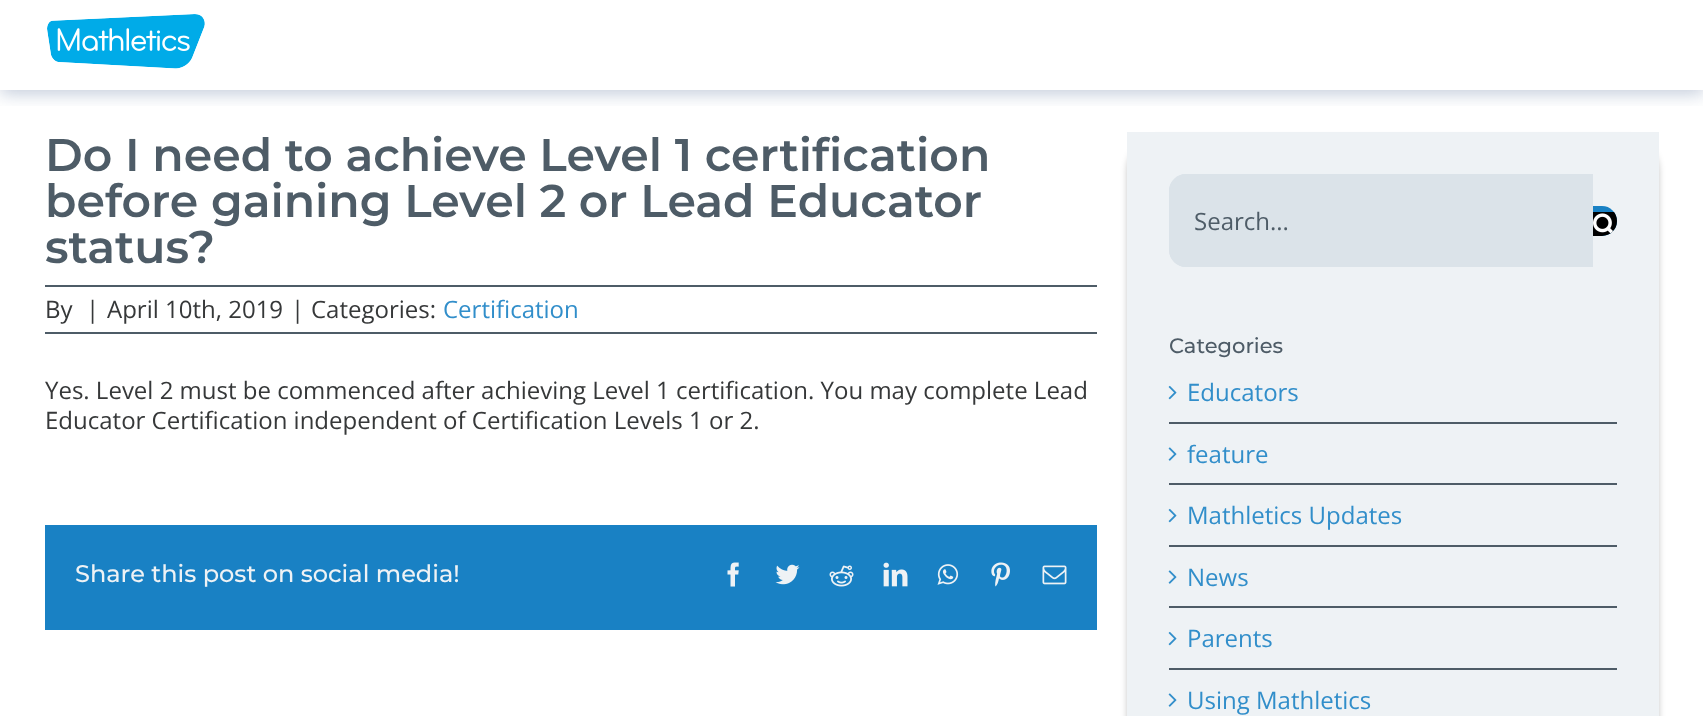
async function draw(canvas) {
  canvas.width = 1703
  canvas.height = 716
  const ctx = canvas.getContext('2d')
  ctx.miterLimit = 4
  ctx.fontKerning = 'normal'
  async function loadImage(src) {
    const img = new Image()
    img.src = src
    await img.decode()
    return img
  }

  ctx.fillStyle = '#fff'
  ctx.fillRect(0, 0, 1703, 716)
  ctx.save()
  ctx.beginPath()
  ctx.rect(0, 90, 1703, 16)
  ctx.clip()
  ctx.fillStyle = '#052c6942'
  ctx.filter = 'blur(9px)'
  ctx.beginPath()
  ctx.rect(0, 3, 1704, 90)
  ctx.fill()
  ctx.filter = 'none'
  ctx.restore()
  ctx.drawImage(await loadImage('image0.png'), 47, 14, 158, 55)
  ctx.font = '600 45.8px Montserrat'
  ctx.fillStyle = '#4e5c67'
  ctx.fillText('Do I need to achieve Level 1 certification', 45, 171)
  ctx.fillText('before gaining Level 2 or Lead Educator', 45, 217)
  ctx.fillText('status?', 45, 263)
  ctx.fillRect(45, 285, 1052, 2)
  ctx.fillRect(45, 332, 1052, 2)
  ctx.font = '24px Open Sans'
  ctx.fillStyle = '#363839'
  ctx.fillText('By', 45, 318)
  ctx.fillText('|', 86, 318)
  ctx.fillText('April 10th, 2019', 107, 318)
  ctx.fillText('|', 291, 318)
  ctx.fillText('Categories:', 311, 318)
  ctx.fillStyle = '#318eca'
  ctx.fillText('Certification', 443, 318)
  ctx.fillStyle = '#363839'
  ctx.fillText('Yes. Level 2 must be commenced after achieving Level 1 certification. You may complete Lead', 45, 399)
  ctx.fillText('Educator Certification independent of Certification Levels 1 or 2.', 45, 429)
  ctx.fillStyle = '#1981c4'
  ctx.fillRect(45, 525, 1052, 105)
  ctx.font = '500 24px Montserrat'
  ctx.fillStyle = '#eef2f5'
  ctx.fillText('Share this post on social media!', 75, 582)
  ctx.drawImage(await loadImage('image1.png'), 727, 562, 12, 25)
  ctx.drawImage(await loadImage('image2.png'), 775, 564, 25, 21)
  ctx.drawImage(await loadImage('image3.png'), 829, 565, 25, 22)
  ctx.drawImage(await loadImage('image4.png'), 883, 562, 25, 25)
  ctx.drawImage(await loadImage('image5.png'), 937, 564, 22, 21)
  ctx.drawImage(await loadImage('image6.png'), 991, 562, 19, 25)
  ctx.drawImage(await loadImage('image7.png'), 1042, 565, 25, 20)
  ctx.fillStyle = '#00000038'
  ctx.filter = 'blur(3px)'
  ctx.beginPath()
  ctx.roundRect(1127, 138, 532, 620, 33)
  ctx.fill()
  ctx.filter = 'none'
  ctx.fillStyle = '#eef2f5'
  ctx.fillRect(1127, 132, 532, 584)
  ctx.fillStyle = '#dbe3e9'
  ctx.beginPath()
  ctx.roundRect(1169, 174, 424, 93, [17, 0, 0, 17])
  ctx.fill()
  ctx.beginPath()
  ctx.moveTo(1185, 177)
  ctx.lineTo(1593, 177)
  ctx.lineTo(1593, 174)
  ctx.lineTo(1186, 174)
  ctx.bezierCurveTo(1177, 174, 1169, 182, 1169, 191)
  ctx.lineTo(1169, 250)
  ctx.bezierCurveTo(1169, 259, 1177, 267, 1186, 267)
  ctx.lineTo(1593, 267)
  ctx.lineTo(1593, 264)
  ctx.lineTo(1185, 264)
  ctx.bezierCurveTo(1178, 264, 1172, 258, 1172, 250)
  ctx.lineTo(1172, 190)
  ctx.bezierCurveTo(1172, 183, 1178, 177, 1185, 177)
  ctx.closePath()
  ctx.fill()
  ctx.font = '24px Open Sans'
  ctx.fillStyle = '#4e5c67'
  ctx.fillText('Search...', 1194, 230)
  ctx.fillStyle = '#1981c4'
  ctx.beginPath()
  ctx.roundRect(1593, 206, 24, 30, [0, 15, 15, 0])
  ctx.fill()
  ctx.save()
  ctx.beginPath()
  ctx.roundRect(1593, 206, 24, 30, [0, 15, 15, 0])
  ctx.clip()
  ctx.fillStyle = '#000'
  ctx.fillRect(1593, 212, 24, 24)
  ctx.restore()
  ctx.drawImage(await loadImage('image8.png'), 1593, 213, 20, 21)
  ctx.font = '500 21px Montserrat'
  ctx.fillStyle = '#4e5c67'
  ctx.fillText('Categories', 1169, 353)
  ctx.fillRect(1169, 422, 448, 2)
  ctx.drawImage(await loadImage('image9.png'), 1168, 385, 9, 15)
  ctx.font = '24px Open Sans'
  ctx.fillStyle = '#318eca'
  ctx.fillText('Educators', 1187, 401)
  ctx.fillStyle = '#4e5c67'
  ctx.fillRect(1169, 483, 448, 2)
  ctx.drawImage(await loadImage('image10.png'), 1168, 447, 9, 14)
  ctx.fillStyle = '#318eca'
  ctx.fillText('feature', 1187, 463)
  ctx.fillStyle = '#4e5c67'
  ctx.fillRect(1169, 545, 448, 2)
  ctx.drawImage(await loadImage('image9.png'), 1168, 508, 9, 15)
  ctx.fillStyle = '#318eca'
  ctx.fillText('Mathletics Updates', 1187, 524)
  ctx.fillStyle = '#4e5c67'
  ctx.fillRect(1169, 606, 448, 2)
  ctx.drawImage(await loadImage('image10.png'), 1168, 570, 9, 14)
  ctx.fillStyle = '#318eca'
  ctx.fillText('News', 1187, 586)
  ctx.fillStyle = '#4e5c67'
  ctx.fillRect(1169, 668, 448, 2)
  ctx.drawImage(await loadImage('image9.png'), 1168, 631, 9, 15)
  ctx.fillStyle = '#318eca'
  ctx.fillText('Parents', 1187, 647)
  ctx.drawImage(await loadImage('image10.png'), 1168, 693, 9, 14)
  ctx.fillText('Using Mathletics', 1187, 709)
}

draw(document.querySelector('canvas'))
